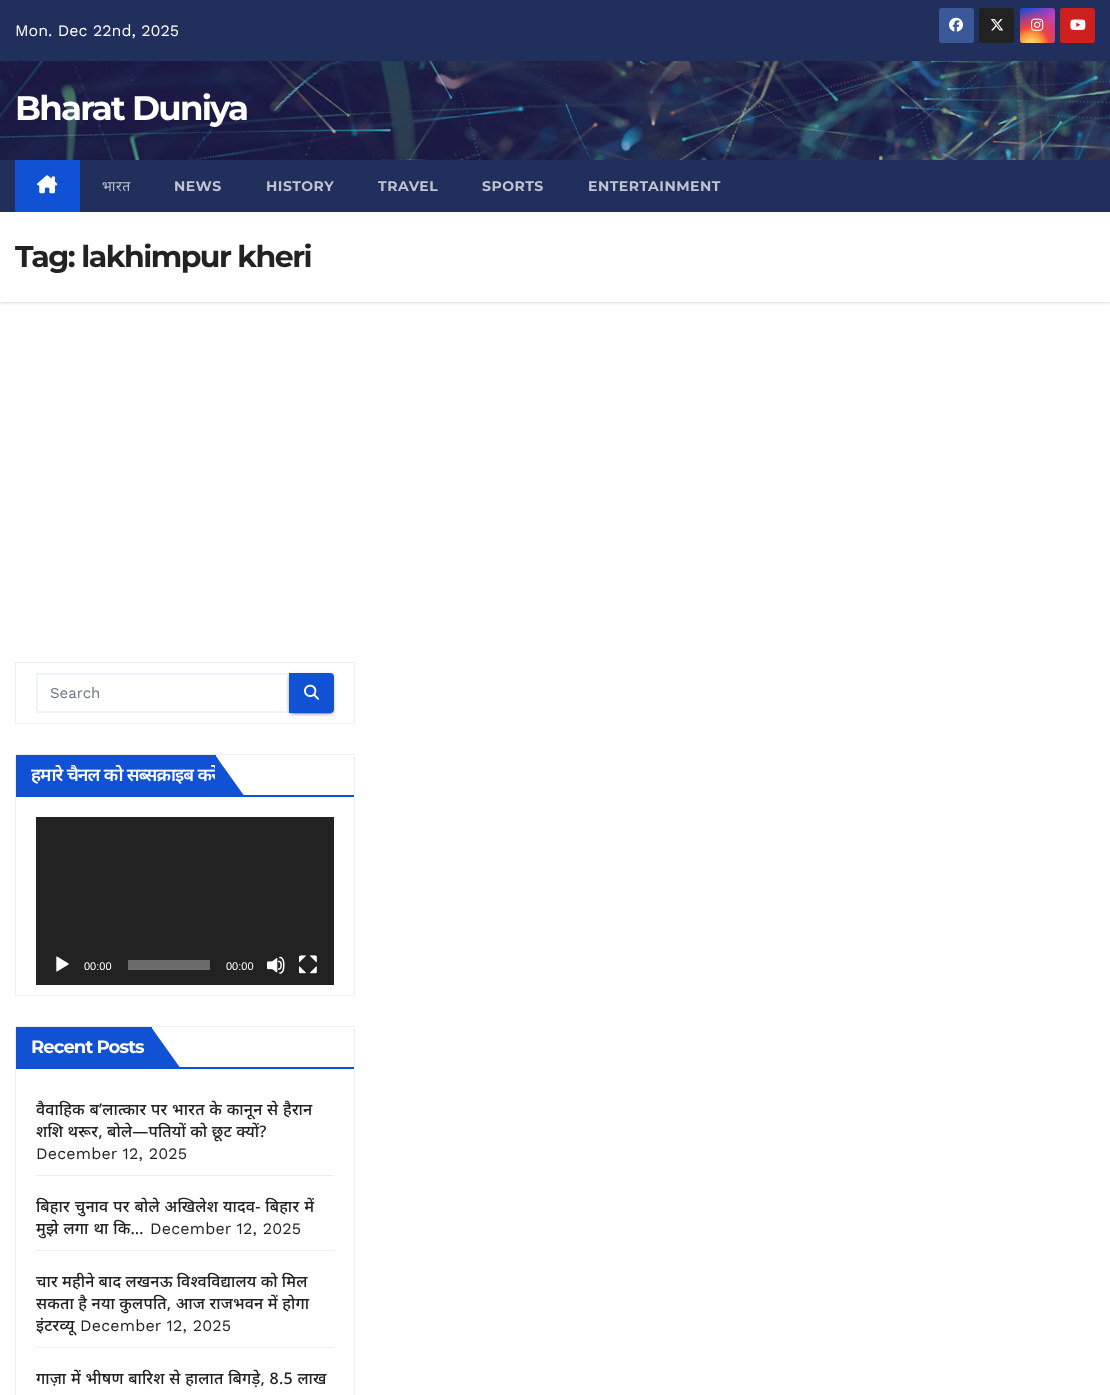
async function draw(canvas) {
  canvas.width = 1110
  canvas.height = 1395
  const ctx = canvas.getContext('2d')
  ctx.miterLimit = 4
  ctx.fontKerning = 'normal'
  async function loadImage(src) {
    const img = new Image()
    img.src = src
    await img.decode()
    return img
  }
  let gradient

  ctx.fillStyle = '#fff'
  ctx.fillRect(0, 0, 1110, 1395)
  ctx.fillStyle = '#202f5b'
  ctx.fillRect(0, 0, 1110, 61)
  ctx.font = '16px Work Sans'
  ctx.fillStyle = '#fff'
  ctx.fillText('Mon. Dec 22nd, 2025', 15, 36)
  ctx.fillStyle = '#3b5998'
  ctx.beginPath()
  ctx.roundRect(939, 8, 35, 35, 3)
  ctx.fill()
  ctx.drawImage(await loadImage('image0.png'), 949, 17, 14, 15)
  ctx.fillStyle = '#222'
  ctx.beginPath()
  ctx.roundRect(979, 8, 35, 35, 3)
  ctx.fill()
  ctx.drawImage(await loadImage('image1.png'), 990, 19, 14, 12)
  gradient = ctx.createLinearGradient(1020, 8, 1055, 43)
  gradient.addColorStop(0.12, '#234bd7')
  gradient.addColorStop(0.58, '#c33cbe')
  ctx.fillStyle = gradient
  ctx.beginPath()
  ctx.roundRect(1020, 8, 35, 35, 3)
  ctx.fill()
  gradient = ctx.createRadialGradient(1031, 45, 0, 1031, 45, 44)
  gradient.addColorStop(0, '#ffe17d')
  gradient.addColorStop(0.1, '#ffcd69')
  gradient.addColorStop(0.28, '#fa9137')
  gradient.addColorStop(0.42, '#eb4141')
  gradient.addColorStop(0.82, '#eb414100')
  ctx.fillStyle = gradient
  ctx.beginPath()
  ctx.roundRect(1020, 8, 35, 35, 3)
  ctx.fill()
  ctx.drawImage(await loadImage('image2.png'), 1031, 18, 13, 13)
  ctx.fillStyle = '#cd201f'
  ctx.beginPath()
  ctx.roundRect(1060, 8, 35, 35, 3)
  ctx.fill()
  ctx.drawImage(await loadImage('image3.png'), 1070, 19, 16, 11)
  ctx.drawImage(await loadImage('image4.png'), 0, 61, 1110, 99)
  ctx.letterSpacing = '-1.75px'
  ctx.font = 'bold 34px Montserrat'
  ctx.fillStyle = '#fff'
  ctx.fillText('Bharat Duniya', 15, 120)
  ctx.fillStyle = '#00000026'
  ctx.filter = 'blur(1.5px)'
  ctx.beginPath()
  ctx.rect(0, 213, 1110, 90)
  ctx.fill()
  ctx.filter = 'none'
  ctx.fillStyle = '#202f5b'
  ctx.fillRect(0, 160, 1110, 52)
  ctx.fillStyle = '#1151d3'
  ctx.fillRect(15, 160, 65, 52)
  ctx.drawImage(await loadImage('image5.png'), 37, 175, 21, 19)
  ctx.letterSpacing = '0.5px'
  ctx.font = '14px Noto Sans'
  ctx.fillStyle = '#bec3cf'
  ctx.fillText('भारत', 102, 191)
  ctx.font = 'bold 14px Montserrat'
  ctx.fillText('NEWS', 174, 191)
  ctx.fillText('HISTORY', 266, 191)
  ctx.fillText('TRAVEL', 378, 191)
  ctx.fillText('SPORTS', 482, 191)
  ctx.fillText('ENTERTAINMENT', 588, 191)
  ctx.fillStyle = '#fff'
  ctx.fillRect(0, 212, 1110, 90)
  ctx.letterSpacing = '-1.5px'
  ctx.font = 'bold 30px Montserrat'
  ctx.fillStyle = '#222'
  ctx.fillText('Tag: lakhimpur kheri', 15, 267)
  ctx.strokeStyle = '#eee'
  ctx.strokeRect(15.5, 662.5, 339, 61)
  ctx.strokeStyle = '#eef3fb'
  ctx.lineWidth = 2
  ctx.strokeRect(37, 674, 251, 38)
  ctx.letterSpacing = '0px'
  ctx.font = '15px Work Sans'
  ctx.fillStyle = '#6c757d'
  ctx.fillText('Search', 50, 698)
  ctx.fillStyle = '#0000001f'
  ctx.filter = 'blur(2.5px)'
  ctx.beginPath()
  ctx.roundRect(289, 674, 45, 40, 4)
  ctx.fill()
  ctx.filter = 'none'
  ctx.fillStyle = '#00000033'
  ctx.filter = 'blur(0.5px)'
  ctx.beginPath()
  ctx.roundRect(291, 678, 41, 36, 2)
  ctx.fill()
  ctx.filter = 'none'
  ctx.fillStyle = '#00000024'
  ctx.filter = 'blur(1px)'
  ctx.beginPath()
  ctx.roundRect(289, 675, 45, 40, 4)
  ctx.fill()
  ctx.filter = 'none'
  ctx.fillStyle = '#1151d3'
  ctx.beginPath()
  ctx.roundRect(289, 673, 45, 40, [0, 4, 4, 0])
  ctx.fill()
  ctx.drawImage(await loadImage('image6.png'), 304, 684, 16, 16)
  ctx.strokeStyle = '#eee'
  ctx.lineWidth = 1
  ctx.strokeRect(15.5, 754.5, 339, 241)
  ctx.fillRect(16, 795, 338, 2)
  ctx.fillRect(16, 755, 200, 40)
  ctx.letterSpacing = '-0.9px'
  ctx.wordSpacing = '0.5px'
  ctx.font = '600 18px Noto Sans'
  ctx.fillStyle = '#fff'
  ctx.fillText('हमारे चैनल को सब्सक्राइब करें', 31, 781)
  ctx.fillStyle = '#1151d3'
  ctx.beginPath()
  ctx.moveTo(215, 755)
  ctx.lineTo(245, 797)
  ctx.lineTo(215, 797)
  ctx.closePath()
  ctx.fill()
  ctx.beginPath()
  ctx.moveTo(215, 755)
  ctx.lineTo(218, 759)
  ctx.lineTo(218, 794)
  ctx.lineTo(215, 797)
  ctx.closePath()
  ctx.fill()
  ctx.fillStyle = '#222'
  ctx.fillRect(36, 817, 298, 168)
  ctx.drawImage(await loadImage('image7.png'), 56, 956, 13, 16)
  ctx.letterSpacing = '0px'
  ctx.wordSpacing = '0px'
  ctx.font = '11px Liberation Sans'
  ctx.fillStyle = '#fff'
  ctx.fillText('00:00', 84, 970)
  ctx.fillStyle = '#6b6b6b'
  ctx.fillRect(128, 960, 82, 10)
  ctx.fillStyle = '#fff'
  ctx.fillText('00:00', 226, 970)
  ctx.drawImage(await loadImage('image8.png'), 267, 956, 18, 18)
  ctx.drawImage(await loadImage('image9.png'), 299, 955, 18, 19)
  ctx.strokeRect(15.5, 1026.5, 339, 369)
  ctx.fillStyle = '#1151d3'
  ctx.fillRect(16, 1067, 338, 2)
  ctx.fillRect(16, 1027, 136, 40)
  ctx.letterSpacing = '-0.9px'
  ctx.font = 'bold 18px Montserrat'
  ctx.fillStyle = '#fff'
  ctx.fillText('Recent Posts', 31, 1053)
  ctx.fillStyle = '#1151d3'
  ctx.beginPath()
  ctx.moveTo(151, 1027)
  ctx.lineTo(151, 1069)
  ctx.lineTo(181, 1069)
  ctx.closePath()
  ctx.fill()
  ctx.beginPath()
  ctx.moveTo(151, 1069)
  ctx.lineTo(154, 1066)
  ctx.lineTo(154, 1032)
  ctx.lineTo(151, 1027)
  ctx.closePath()
  ctx.fill()
  ctx.fillStyle = '#eee'
  ctx.fillRect(36, 1175, 298, 1)
  ctx.save()
  ctx.beginPath()
  ctx.rect(36, 1089, 298, 86)
  ctx.clip()
  ctx.letterSpacing = '0.2px'
  ctx.wordSpacing = '0.25px'
  ctx.font = '500 16px Noto Sans'
  ctx.fillStyle = '#222'
  ctx.fillText('वैवाहिक ब’लात्कार पर भारत के कानून से हैरान', 36, 1115)
  ctx.restore()
  ctx.letterSpacing = '0.2px'
  ctx.font = '500 16px Noto Sans'
  ctx.fillStyle = '#222'
  ctx.fillText('शशि थरूर, बोले—पतियों को छूट क्यों?', 36, 1137)
  ctx.font = '16px Work Sans'
  ctx.fillText('December 12, 2025', 36, 1159)
  ctx.fillStyle = '#eee'
  ctx.fillRect(36, 1250, 298, 1)
  ctx.wordSpacing = '0.5px'
  ctx.font = '500 16px Noto Sans'
  ctx.fillStyle = '#222'
  ctx.fillText('बिहार चुनाव पर बोले अखिलेश यादव- बिहार में', 36, 1212)
  ctx.save()
  ctx.beginPath()
  ctx.rect(36, 1186, 298, 64)
  ctx.clip()
  ctx.fillText('मुझे लगा था कि…', 36, 1234)
  ctx.restore()
  ctx.wordSpacing = '0px'
  ctx.font = '16px Work Sans'
  ctx.fillText('December 12, 2025', 150, 1234)
  ctx.fillStyle = '#eee'
  ctx.fillRect(36, 1347, 298, 1)
  ctx.wordSpacing = '-0.25px'
  ctx.font = '500 16px Noto Sans'
  ctx.fillStyle = '#222'
  ctx.fillText('चार महीने बाद लखनऊ विश्वविद्यालय को मिल', 36, 1287)
  ctx.wordSpacing = '0px'
  ctx.fillText('सकता है नया कुलपति, आज राजभवन में होगा', 36, 1309)
  ctx.save()
  ctx.beginPath()
  ctx.rect(36, 1261, 298, 86)
  ctx.clip()
  ctx.fillText('इंटरव्यू', 36, 1331)
  ctx.restore()
  ctx.font = '16px Work Sans'
  ctx.fillText('December 12, 2025', 80, 1331)
  ctx.wordSpacing = '0.25px'
  ctx.font = '500 16px Noto Sans'
  ctx.fillText('गाज़ा में भीषण बारिश से हालात बिगड़े, 8.5 लाख', 36, 1384)
}

draw(document.querySelector('canvas'))
